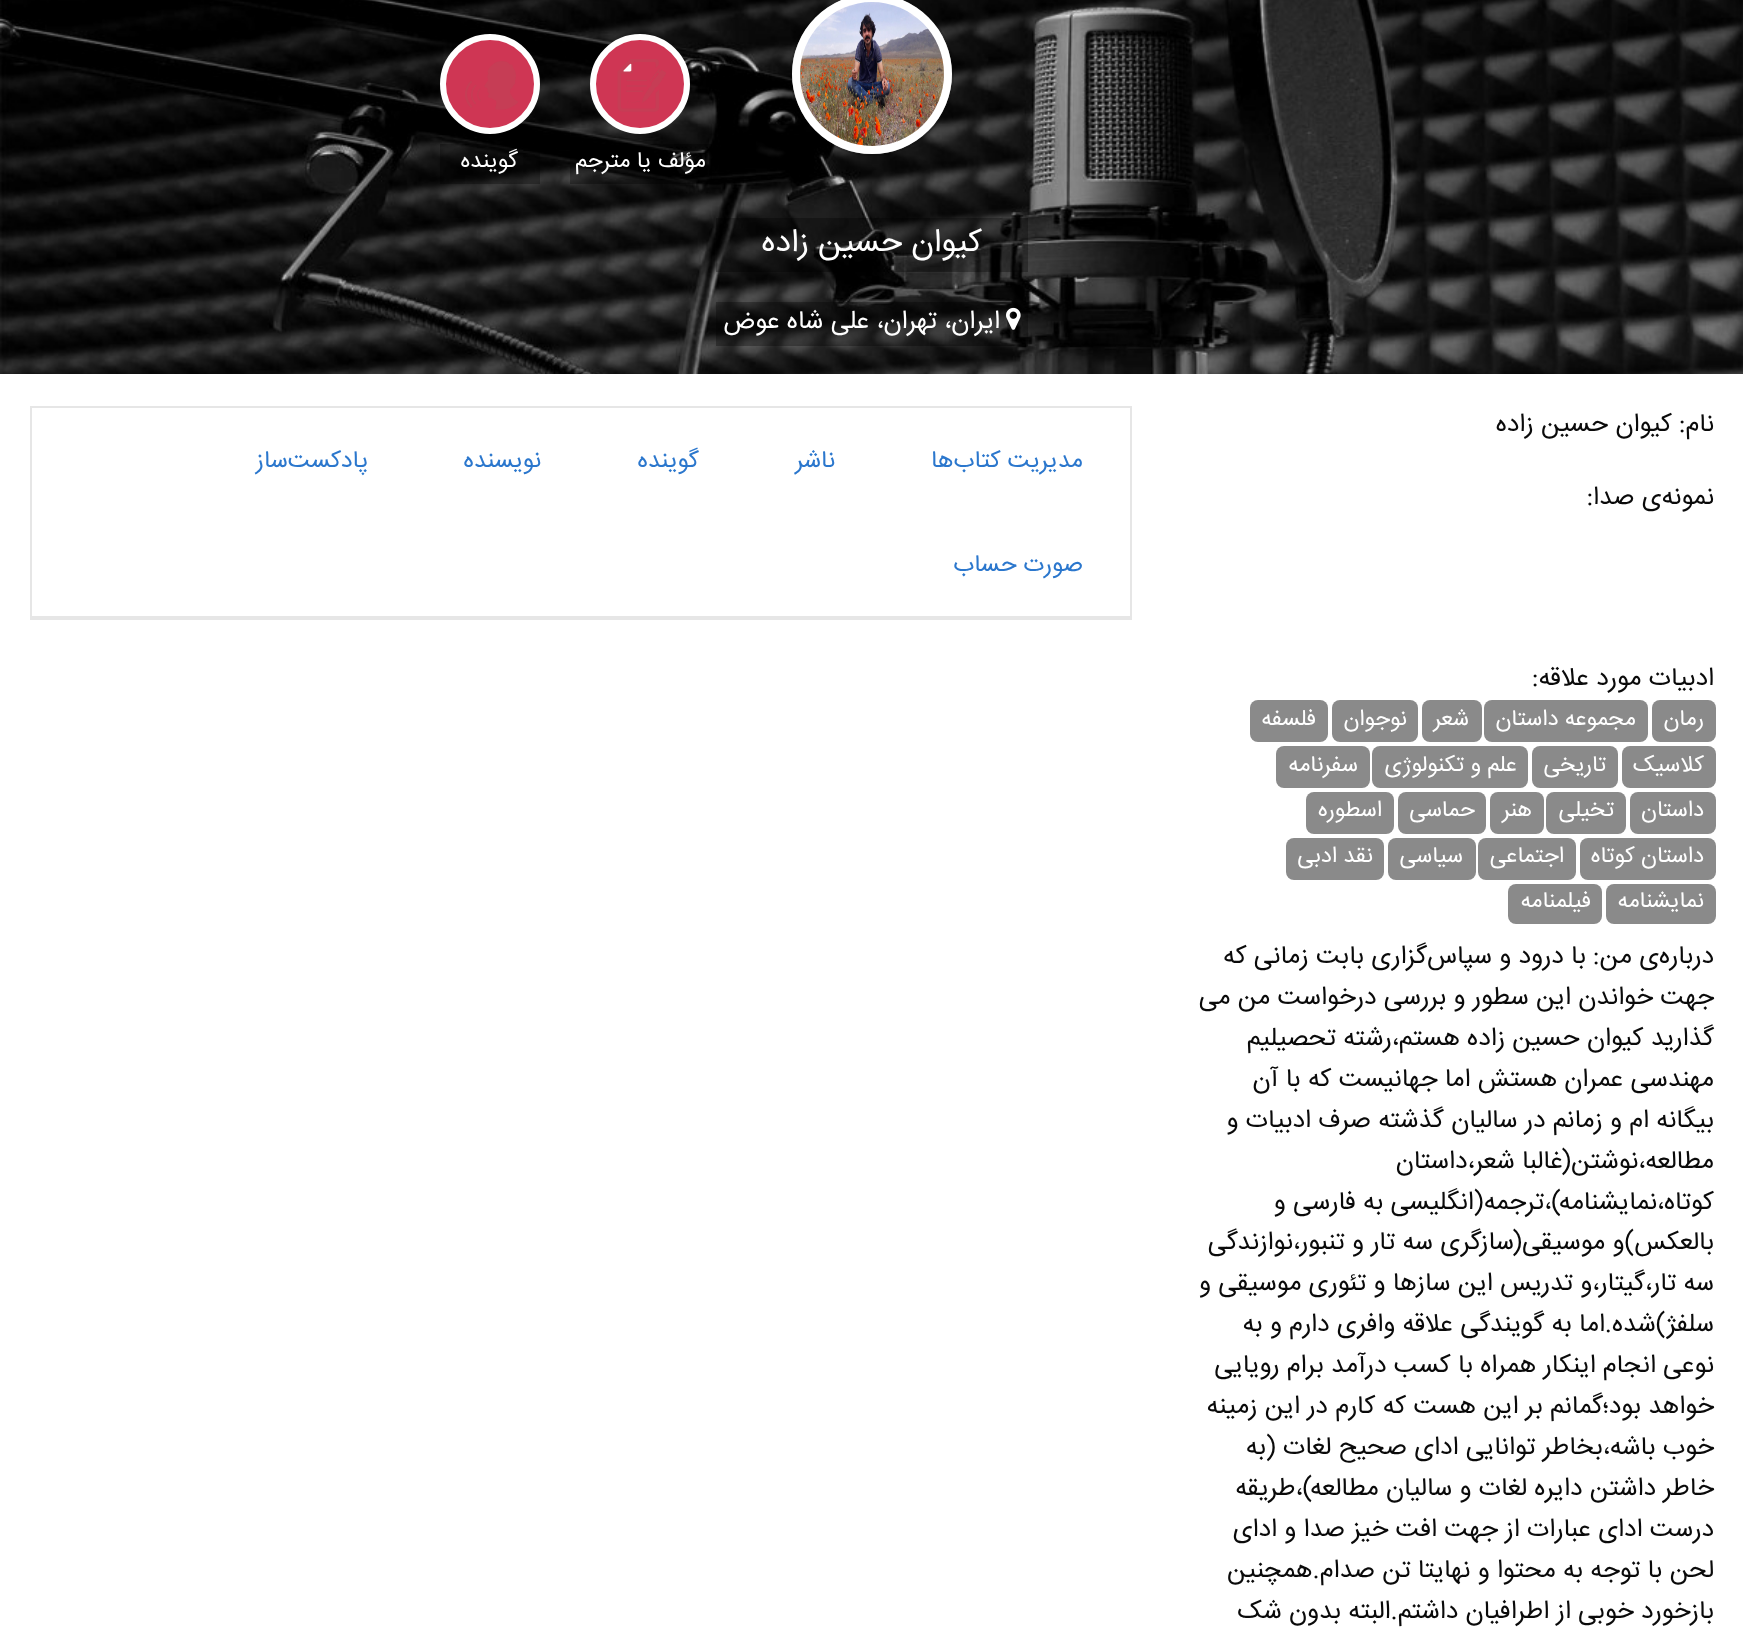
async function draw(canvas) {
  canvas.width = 1743
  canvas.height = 1633
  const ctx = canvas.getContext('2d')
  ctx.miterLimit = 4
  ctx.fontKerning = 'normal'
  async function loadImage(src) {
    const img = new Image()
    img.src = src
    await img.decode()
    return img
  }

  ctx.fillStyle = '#fff'
  ctx.fillRect(0, 0, 1743, 1633)
  ctx.drawImage(await loadImage('image0.png'), 0, 0, 1743, 374)
  ctx.beginPath()
  ctx.arc(872, 74, 81, 0, 2 * Math.PI)
  ctx.strokeStyle = '#0a0a0a33'
  ctx.lineWidth = 2
  ctx.stroke()
  ctx.beginPath()
  ctx.arc(872, 74, 80, 0, 2 * Math.PI)
  ctx.fill()
  ctx.beginPath()
  ctx.arc(872, 74, 76, 0, 2 * Math.PI)
  ctx.strokeStyle = '#ffffff80'
  ctx.lineWidth = 8
  ctx.stroke()
  ctx.drawImage(await loadImage('image1.png'), 800, 2, 144, 144)
  ctx.fillStyle = '#cf3654'
  ctx.beginPath()
  ctx.arc(640, 84, 47, 0, 2 * Math.PI)
  ctx.fill()
  ctx.strokeStyle = '#fff'
  ctx.lineWidth = 6
  ctx.stroke()
  ctx.drawImage(await loadImage('image2.png'), 617, 59, 49, 53)
  ctx.fillStyle = '#0000004d'
  ctx.fillRect(570, 144, 142, 40)
  ctx.direction = 'rtl'
  ctx.font = '22.5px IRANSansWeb'
  ctx.fillStyle = '#fff'
  ctx.fillText('مؤلف یا مترجم', 706, 167)
  ctx.fillStyle = '#cf3654'
  ctx.beginPath()
  ctx.arc(490, 84, 47, 0, 2 * Math.PI)
  ctx.fill()
  ctx.stroke()
  ctx.drawImage(await loadImage('image3.png'), 465, 61, 53, 49)
  ctx.fillStyle = '#0000004d'
  ctx.fillRect(440, 144, 100, 40)
  ctx.fillStyle = '#fff'
  ctx.fillText('گوینده', 518, 167)
  ctx.fillStyle = '#0000004d'
  ctx.fillRect(716, 218, 312, 54)
  ctx.font = '32px IRANSansWeb'
  ctx.fillStyle = '#fff'
  ctx.fillText('کیوان حسین زاده', 982, 251)
  ctx.fillStyle = '#0000004d'
  ctx.fillRect(716, 302, 312, 44)
  ctx.drawImage(await loadImage('image4.png'), 1006, 307, 15, 23)
  ctx.font = '25.6px IRANSansWeb'
  ctx.fillStyle = '#fff'
  ctx.fillText('ایران، تهران، علی شاه عوض', 1000, 328)
  ctx.fillStyle = '#0a0a0a'
  ctx.fillText('نام:', 1714, 431)
  ctx.fillText('کیوان حسین زاده', 1672, 431)
  ctx.fillText('نمونه‌ی صدا:', 1714, 504)
  ctx.fillText('ادبیات مورد علاقه:', 1714, 685)
  ctx.fillStyle = '#8a8a8a'
  ctx.beginPath()
  ctx.roundRect(1652, 700, 64, 42, 8)
  ctx.fill()
  ctx.font = '22.5px IRANSansWeb'
  ctx.fillStyle = '#fff'
  ctx.fillText('رمان', 1704, 725)
  ctx.fillStyle = '#8a8a8a'
  ctx.beginPath()
  ctx.roundRect(1484, 700, 164, 42, 8)
  ctx.fill()
  ctx.fillStyle = '#fff'
  ctx.fillText('مجموعه داستان', 1636, 725)
  ctx.fillStyle = '#8a8a8a'
  ctx.beginPath()
  ctx.roundRect(1422, 700, 60, 42, 8)
  ctx.fill()
  ctx.fillStyle = '#fff'
  ctx.fillText('شعر', 1469, 725)
  ctx.fillStyle = '#8a8a8a'
  ctx.beginPath()
  ctx.roundRect(1332, 700, 86, 42, 8)
  ctx.fill()
  ctx.fillStyle = '#fff'
  ctx.fillText('نوجوان', 1407, 725)
  ctx.fillStyle = '#8a8a8a'
  ctx.beginPath()
  ctx.roundRect(1250, 700, 78, 42, 8)
  ctx.fill()
  ctx.fillStyle = '#fff'
  ctx.fillText('فلسفه', 1316, 725)
  ctx.fillStyle = '#8a8a8a'
  ctx.beginPath()
  ctx.roundRect(1622, 746, 94, 42, 8)
  ctx.fill()
  ctx.fillStyle = '#fff'
  ctx.fillText('کلاسیک', 1704, 771)
  ctx.fillStyle = '#8a8a8a'
  ctx.beginPath()
  ctx.roundRect(1532, 746, 86, 42, 8)
  ctx.fill()
  ctx.fillStyle = '#fff'
  ctx.fillText('تاریخی', 1606, 771)
  ctx.fillStyle = '#8a8a8a'
  ctx.beginPath()
  ctx.roundRect(1372, 746, 156, 42, 8)
  ctx.fill()
  ctx.fillStyle = '#fff'
  ctx.fillText('علم و تکنولوژی', 1517, 771)
  ctx.fillStyle = '#8a8a8a'
  ctx.beginPath()
  ctx.roundRect(1276, 746, 94, 42, 8)
  ctx.fill()
  ctx.fillStyle = '#fff'
  ctx.fillText('سفرنامه', 1358, 771)
  ctx.fillStyle = '#8a8a8a'
  ctx.beginPath()
  ctx.roundRect(1630, 792, 86, 42, 8)
  ctx.fill()
  ctx.fillStyle = '#fff'
  ctx.fillText('داستان', 1704, 816)
  ctx.fillStyle = '#8a8a8a'
  ctx.beginPath()
  ctx.roundRect(1546, 792, 80, 42, 8)
  ctx.fill()
  ctx.fillStyle = '#fff'
  ctx.fillText('تخیلی', 1614, 816)
  ctx.fillStyle = '#8a8a8a'
  ctx.beginPath()
  ctx.roundRect(1490, 792, 54, 42, 8)
  ctx.fill()
  ctx.fillStyle = '#fff'
  ctx.fillText('هنر', 1532, 816)
  ctx.fillStyle = '#8a8a8a'
  ctx.beginPath()
  ctx.roundRect(1398, 792, 88, 42, 8)
  ctx.fill()
  ctx.fillStyle = '#fff'
  ctx.fillText('حماسی', 1475, 816)
  ctx.fillStyle = '#8a8a8a'
  ctx.beginPath()
  ctx.roundRect(1306, 792, 88, 42, 8)
  ctx.fill()
  ctx.fillStyle = '#fff'
  ctx.fillText('اسطوره', 1382, 816)
  ctx.fillStyle = '#8a8a8a'
  ctx.beginPath()
  ctx.roundRect(1580, 838, 136, 42, 8)
  ctx.fill()
  ctx.fillStyle = '#fff'
  ctx.fillText('داستان کوتاه', 1704, 862)
  ctx.fillStyle = '#8a8a8a'
  ctx.beginPath()
  ctx.roundRect(1478, 838, 98, 42, 8)
  ctx.fill()
  ctx.fillStyle = '#fff'
  ctx.fillText('اجتماعی', 1564, 862)
  ctx.fillStyle = '#8a8a8a'
  ctx.beginPath()
  ctx.roundRect(1388, 838, 88, 42, 8)
  ctx.fill()
  ctx.fillStyle = '#fff'
  ctx.fillText('سیاسی', 1463, 862)
  ctx.fillStyle = '#8a8a8a'
  ctx.beginPath()
  ctx.roundRect(1286, 838, 98, 42, 8)
  ctx.fill()
  ctx.fillStyle = '#fff'
  ctx.fillText('نقد ادبی', 1373, 862)
  ctx.fillStyle = '#8a8a8a'
  ctx.beginPath()
  ctx.roundRect(1606, 884, 110, 40, 8)
  ctx.fill()
  ctx.fillStyle = '#fff'
  ctx.fillText('نمایشنامه', 1704, 907)
  ctx.fillStyle = '#8a8a8a'
  ctx.beginPath()
  ctx.roundRect(1508, 884, 94, 40, 8)
  ctx.fill()
  ctx.fillStyle = '#fff'
  ctx.fillText('فیلمنامه', 1591, 907)
  ctx.font = '25.6px IRANSansWeb'
  ctx.fillStyle = '#0a0a0a'
  ctx.fillText('درباره‌ی من:', 1714, 963)
  ctx.fillText('با درود و سپاس‌گزاری بابت زمانی که', 1586, 963)
  ctx.fillText('جهت خواندن این سطور و بررسی درخواست من می', 1714, 1004)
  ctx.fillText('گذارید کیوان حسین زاده هستم،رشته تحصیلیم', 1714, 1045)
  ctx.fillText('مهندسی عمران هستش اما جهانیست که با آن', 1714, 1086)
  ctx.fillText('بیگانه ام و زمانم در سالیان گذشته صرف ادبیات و', 1714, 1127)
  ctx.fillText('مطالعه،نوشتن(غالبا شعر،داستان', 1714, 1168)
  ctx.fillText('کوتاه،نمایشنامه)،ترجمه(انگلیسی به فارسی و', 1714, 1209)
  ctx.fillText('بالعکس)و موسیقی(سازگری سه تار و تنبور،نوازندگی', 1714, 1249)
  ctx.fillText('سه تار،گیتار،و تدریس این سازها و تئوری موسیقی و', 1714, 1290)
  ctx.fillText('سلفژ)شده.اما به گویندگی علاقه وافری دارم و به', 1714, 1331)
  ctx.fillText('نوعی انجام اینکار همراه با کسب درآمد برام رویایی', 1714, 1372)
  ctx.fillText('خواهد بود؛گمانم بر این هست که کارم در این زمینه', 1714, 1413)
  ctx.fillText('خوب باشه،بخاطر توانایی ادای صحیح لغات (به', 1714, 1454)
  ctx.fillText('خاطر داشتن دایره لغات و سالیان مطالعه)،طریقه', 1714, 1495)
  ctx.fillText('درست ادای عبارات از جهت افت خیز صدا و ادای', 1714, 1536)
  ctx.fillText('لحن با توجه به محتوا و نهایتا تن صدام.همچنین', 1714, 1577)
  ctx.fillText('بازخورد خوبی از اطرافیان داشتم.البته بدون شک', 1714, 1618)
  ctx.strokeStyle = '#e6e6e6'
  ctx.lineWidth = 2
  ctx.strokeRect(31, 407, 1100, 210)
  ctx.font = '24px IRANSansWeb'
  ctx.fillStyle = '#2b77cd'
  ctx.fillText('مدیریت کتاب‌ها', 1083, 467)
  ctx.fillText('ناشر', 835, 467)
  ctx.fillText('گوینده', 699, 467)
  ctx.fillText('نویسنده', 541, 467)
  ctx.fillText('پادکست‌ساز', 368, 467)
  ctx.fillText('صورت حساب', 1083, 571)
  ctx.fillStyle = '#e6e6e6'
  ctx.fillRect(30, 618, 1102, 2)
}

draw(document.querySelector('canvas'))
